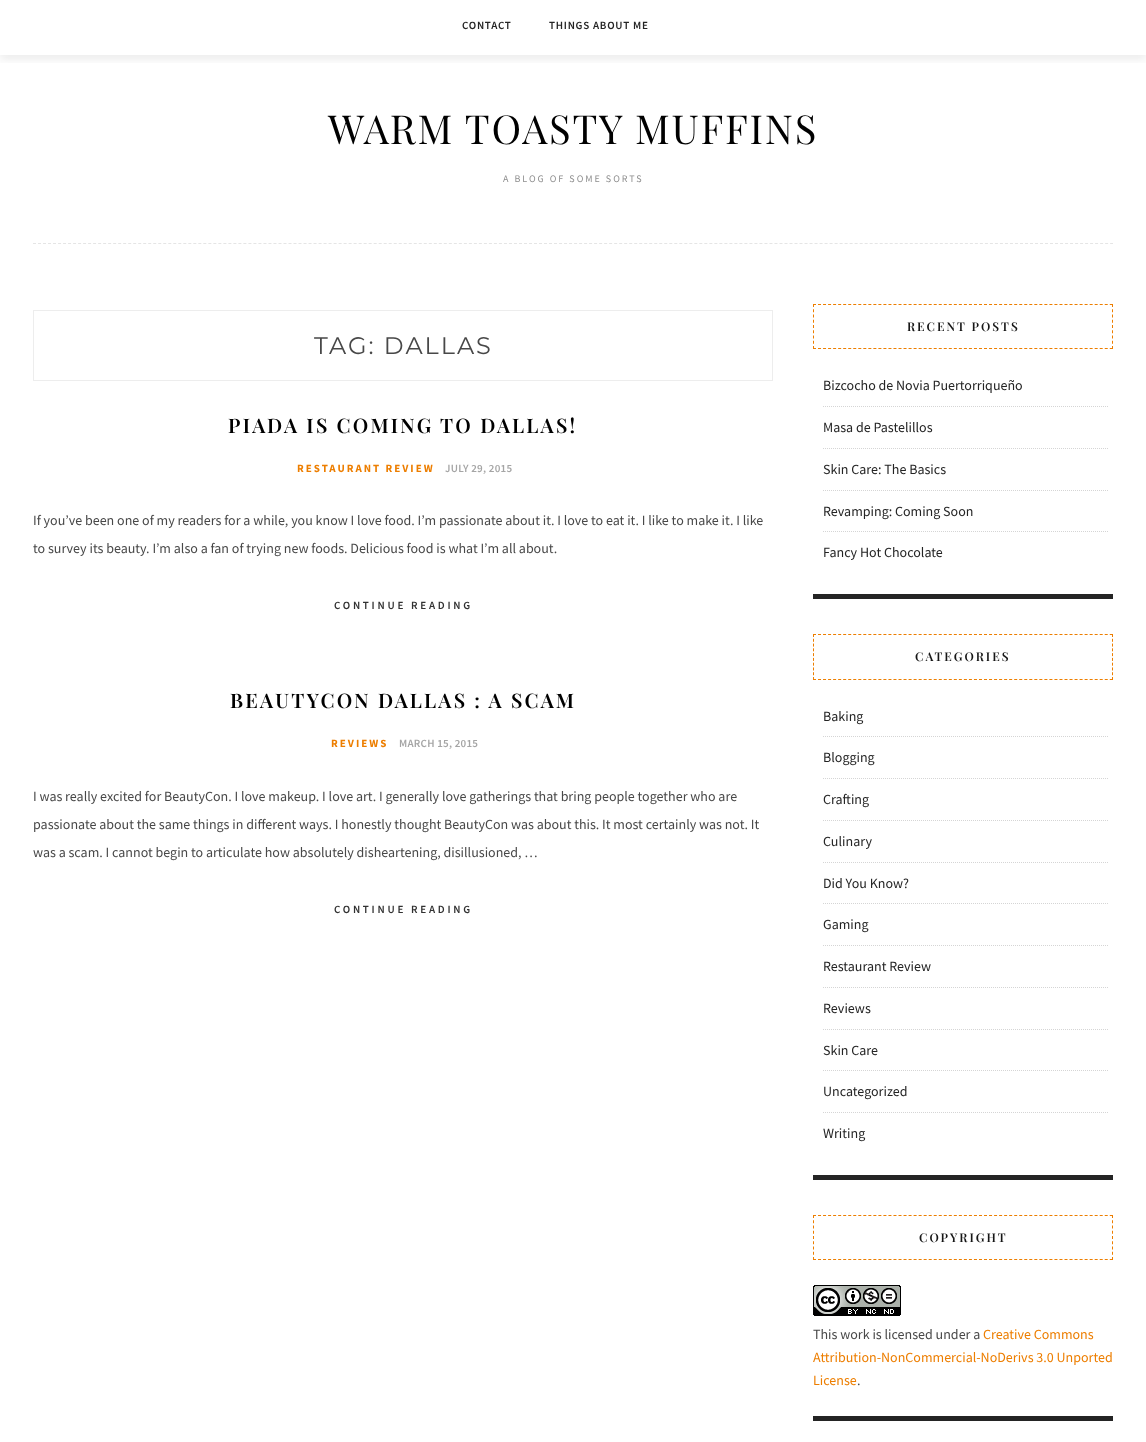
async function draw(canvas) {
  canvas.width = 1146
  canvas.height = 1442
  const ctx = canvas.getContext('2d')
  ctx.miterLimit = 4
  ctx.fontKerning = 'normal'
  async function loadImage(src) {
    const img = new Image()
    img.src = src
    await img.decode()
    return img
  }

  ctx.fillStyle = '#fff'
  ctx.fillRect(0, 0, 1146, 1442)
  ctx.save()
  ctx.beginPath()
  ctx.rect(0, 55, 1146, 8)
  ctx.clip()
  ctx.fillStyle = '#16161614'
  ctx.filter = 'blur(4px)'
  ctx.beginPath()
  ctx.rect(0, 5, 1146, 55)
  ctx.fill()
  ctx.filter = 'none'
  ctx.restore()
  ctx.letterSpacing = '0.75px'
  ctx.font = '600 11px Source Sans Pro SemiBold'
  ctx.fillStyle = '#242424'
  ctx.fillText('CONTACT', 462, 29)
  ctx.fillText('THINGS ABOUT ME', 549, 29)
  ctx.beginPath()
  ctx.moveTo(33, 243.5)
  ctx.lineTo(1113, 243.5)
  ctx.strokeStyle = '#e5e5e5'
  ctx.setLineDash([3, 2.01])
  ctx.stroke()
  ctx.letterSpacing = '1.75px'
  ctx.font = '40px Playfair Display'
  ctx.fillStyle = '#000'
  ctx.fillText('WARM TOASTY MUFFINS', 328, 144)
  ctx.letterSpacing = '2px'
  ctx.font = '10px Source Sans Pro'
  ctx.fillStyle = '#8e8e8e'
  ctx.fillText('A BLOG OF SOME SORTS', 503, 182)
  ctx.strokeStyle = '#ededed'
  ctx.setLineDash([])
  ctx.strokeRect(33.5, 310.5, 739, 70)
  ctx.font = '24px Montserrat'
  ctx.fillStyle = '#484848'
  ctx.fillText('TAG: DALLAS', 314, 354)
  ctx.letterSpacing = '2.25px'
  ctx.font = '600 20px Playfair Display'
  ctx.fillStyle = '#000'
  ctx.fillText('PIADA IS COMING TO DALLAS!', 228, 433)
  ctx.letterSpacing = '2px'
  ctx.font = 'bold 11px Source Sans Pro'
  ctx.fillStyle = '#ed7e00'
  ctx.fillText('RESTAURANT REVIEW', 297, 472)
  ctx.letterSpacing = '0.25px'
  ctx.font = '600 11px Source Sans Pro SemiBold'
  ctx.fillStyle = '#a5a5a5'
  ctx.fillText('JULY 29, 2015', 445, 472)
  ctx.letterSpacing = '0px'
  ctx.font = '14px Source Sans Pro'
  ctx.fillStyle = '#484848'
  ctx.fillText('If you’ve been one of my readers for a while, you know I love food. I’m passionate about it. I love to eat it. I like to make it. I like', 33, 525)
  ctx.fillText('to survey its beauty. I’m also a fan of trying new foods. Delicious food is what I’m all about.', 33, 553)
  ctx.letterSpacing = '2.75px'
  ctx.font = '600 11px Source Sans Pro SemiBold'
  ctx.fillStyle = '#313131'
  ctx.fillText('CONTINUE READING', 334, 609)
  ctx.letterSpacing = '2.25px'
  ctx.font = '600 20px Playfair Display'
  ctx.fillStyle = '#000'
  ctx.fillText('BEAUTYCON DALLAS : A SCAM', 230, 708)
  ctx.letterSpacing = '2px'
  ctx.font = 'bold 11px Source Sans Pro'
  ctx.fillStyle = '#ed7e00'
  ctx.fillText('REVIEWS', 331, 747)
  ctx.letterSpacing = '0.25px'
  ctx.font = '600 11px Source Sans Pro SemiBold'
  ctx.fillStyle = '#a5a5a5'
  ctx.fillText('MARCH 15, 2015', 399, 747)
  ctx.letterSpacing = '0px'
  ctx.font = '14px Source Sans Pro'
  ctx.fillStyle = '#484848'
  ctx.fillText('I was really excited for BeautyCon. I love makeup. I love art. I generally love gatherings that bring people together who are', 33, 801)
  ctx.fillText('passionate about the same things in different ways. I honestly thought BeautyCon was about this. It most certainly was not. It', 33, 829)
  ctx.fillText('was a scam. I cannot begin to articulate how absolutely disheartening, disillusioned, …', 33, 857)
  ctx.letterSpacing = '2.75px'
  ctx.font = '600 11px Source Sans Pro SemiBold'
  ctx.fillStyle = '#313131'
  ctx.fillText('CONTINUE READING', 334, 913)
  ctx.fillStyle = '#242424'
  ctx.fillRect(813, 594, 300, 5)
  ctx.beginPath()
  ctx.moveTo(813, 304.5)
  ctx.lineTo(1113, 304.5)
  ctx.strokeStyle = '#ed7e00'
  ctx.setLineDash([3, 2.03])
  ctx.stroke()
  ctx.beginPath()
  ctx.moveTo(1112.5, 304)
  ctx.lineTo(1112.5, 349)
  ctx.setLineDash([3, 2.25])
  ctx.stroke()
  ctx.beginPath()
  ctx.moveTo(813, 348.5)
  ctx.lineTo(1113, 348.5)
  ctx.setLineDash([3, 2.03])
  ctx.stroke()
  ctx.beginPath()
  ctx.moveTo(813.5, 304)
  ctx.lineTo(813.5, 349)
  ctx.setLineDash([3, 2.25])
  ctx.stroke()
  ctx.letterSpacing = '2px'
  ctx.font = '600 12px Playfair Display'
  ctx.fillStyle = '#161616'
  ctx.fillText('RECENT POSTS', 907, 331)
  ctx.beginPath()
  ctx.moveTo(823, 406.5)
  ctx.lineTo(1108, 406.5)
  ctx.strokeStyle = '#d5d5d5'
  ctx.setLineDash([1, 1])
  ctx.stroke()
  ctx.letterSpacing = '0px'
  ctx.font = '14px Source Sans Pro'
  ctx.fillStyle = '#242424'
  ctx.fillText('Bizcocho de Novia Puertorriqueño', 823, 390)
  ctx.beginPath()
  ctx.moveTo(823, 448.5)
  ctx.lineTo(1108, 448.5)
  ctx.stroke()
  ctx.fillText('Masa de Pastelillos', 823, 432)
  ctx.beginPath()
  ctx.moveTo(823, 490.5)
  ctx.lineTo(1108, 490.5)
  ctx.stroke()
  ctx.fillText('Skin Care: The Basics', 823, 474)
  ctx.beginPath()
  ctx.moveTo(823, 531.5)
  ctx.lineTo(1108, 531.5)
  ctx.stroke()
  ctx.fillText('Revamping: Coming Soon', 823, 516)
  ctx.fillText('Fancy Hot Chocolate', 823, 557)
  ctx.fillRect(813, 1175, 300, 5)
  ctx.beginPath()
  ctx.moveTo(813, 634.5)
  ctx.lineTo(1113, 634.5)
  ctx.strokeStyle = '#ed7e00'
  ctx.setLineDash([3, 2.03])
  ctx.stroke()
  ctx.beginPath()
  ctx.moveTo(1112.5, 634)
  ctx.lineTo(1112.5, 680)
  ctx.setLineDash([3, 1.78])
  ctx.stroke()
  ctx.beginPath()
  ctx.moveTo(813, 679.5)
  ctx.lineTo(1113, 679.5)
  ctx.setLineDash([3, 2.03])
  ctx.stroke()
  ctx.beginPath()
  ctx.moveTo(813.5, 634)
  ctx.lineTo(813.5, 680)
  ctx.setLineDash([3, 1.78])
  ctx.stroke()
  ctx.letterSpacing = '2px'
  ctx.font = '600 12px Playfair Display'
  ctx.fillStyle = '#161616'
  ctx.fillText('CATEGORIES', 915, 661)
  ctx.beginPath()
  ctx.moveTo(823, 736.5)
  ctx.lineTo(1108, 736.5)
  ctx.strokeStyle = '#d5d5d5'
  ctx.setLineDash([1, 1])
  ctx.stroke()
  ctx.letterSpacing = '0px'
  ctx.font = '14px Source Sans Pro'
  ctx.fillStyle = '#242424'
  ctx.fillText('Baking', 823, 721)
  ctx.beginPath()
  ctx.moveTo(823, 778.5)
  ctx.lineTo(1108, 778.5)
  ctx.stroke()
  ctx.fillText('Blogging', 823, 762)
  ctx.beginPath()
  ctx.moveTo(823, 820.5)
  ctx.lineTo(1108, 820.5)
  ctx.stroke()
  ctx.fillText('Crafting', 823, 804)
  ctx.beginPath()
  ctx.moveTo(823, 862.5)
  ctx.lineTo(1108, 862.5)
  ctx.stroke()
  ctx.fillText('Culinary', 823, 846)
  ctx.beginPath()
  ctx.moveTo(823, 903.5)
  ctx.lineTo(1108, 903.5)
  ctx.stroke()
  ctx.fillText('Did You Know?', 823, 888)
  ctx.beginPath()
  ctx.moveTo(823, 945.5)
  ctx.lineTo(1108, 945.5)
  ctx.stroke()
  ctx.fillText('Gaming', 823, 929)
  ctx.beginPath()
  ctx.moveTo(823, 987.5)
  ctx.lineTo(1108, 987.5)
  ctx.stroke()
  ctx.fillText('Restaurant Review', 823, 971)
  ctx.beginPath()
  ctx.moveTo(823, 1029.5)
  ctx.lineTo(1108, 1029.5)
  ctx.stroke()
  ctx.fillText('Reviews', 823, 1013)
  ctx.beginPath()
  ctx.moveTo(823, 1070.5)
  ctx.lineTo(1108, 1070.5)
  ctx.stroke()
  ctx.fillText('Skin Care', 823, 1055)
  ctx.beginPath()
  ctx.moveTo(823, 1112.5)
  ctx.lineTo(1108, 1112.5)
  ctx.stroke()
  ctx.fillText('Uncategorized', 823, 1096)
  ctx.fillText('Writing', 823, 1138)
  ctx.fillRect(813, 1416, 300, 5)
  ctx.beginPath()
  ctx.moveTo(813, 1215.5)
  ctx.lineTo(1113, 1215.5)
  ctx.strokeStyle = '#ed7e00'
  ctx.setLineDash([3, 2.03])
  ctx.stroke()
  ctx.beginPath()
  ctx.moveTo(1112.5, 1215)
  ctx.lineTo(1112.5, 1260)
  ctx.setLineDash([3, 2.25])
  ctx.stroke()
  ctx.beginPath()
  ctx.moveTo(813, 1259.5)
  ctx.lineTo(1113, 1259.5)
  ctx.setLineDash([3, 2.03])
  ctx.stroke()
  ctx.beginPath()
  ctx.moveTo(813.5, 1215)
  ctx.lineTo(813.5, 1260)
  ctx.setLineDash([3, 2.25])
  ctx.stroke()
  ctx.letterSpacing = '2px'
  ctx.font = '600 12px Playfair Display'
  ctx.fillStyle = '#161616'
  ctx.fillText('COPYRIGHT', 919, 1242)
  ctx.drawImage(await loadImage('image0.png'), 813, 1285, 88, 31)
  ctx.letterSpacing = '0px'
  ctx.font = '14px Source Sans Pro'
  ctx.fillStyle = '#484848'
  ctx.fillText('This work is licensed under a', 813, 1339)
  ctx.fillStyle = '#ed7e00'
  ctx.fillText('Creative Commons', 983, 1339)
  ctx.fillText('Attribution-NonCommercial-NoDerivs 3.0 Unported', 813, 1362)
  ctx.fillText('License', 813, 1385)
  ctx.fillStyle = '#484848'
  ctx.fillText('.', 857, 1385)
}

draw(document.querySelector('canvas'))
